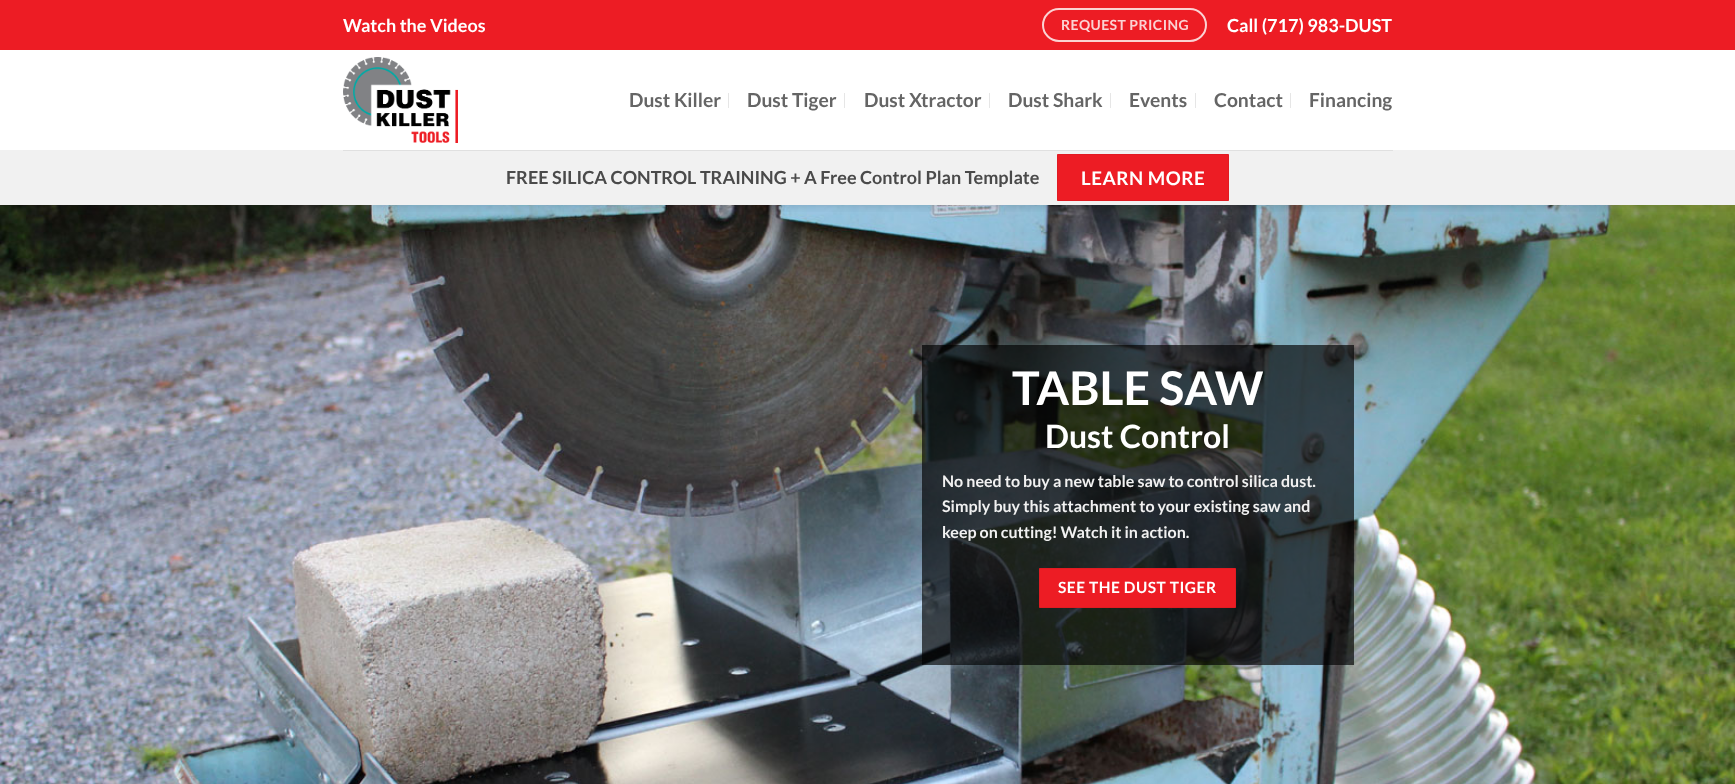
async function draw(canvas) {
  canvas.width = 1735
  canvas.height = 784
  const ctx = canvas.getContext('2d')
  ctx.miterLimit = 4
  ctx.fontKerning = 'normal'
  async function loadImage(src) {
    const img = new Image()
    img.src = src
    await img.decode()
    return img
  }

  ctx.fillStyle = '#fff'
  ctx.fillRect(0, 0, 1735, 784)
  ctx.drawImage(await loadImage('image1.png'), 0, 205, 1735, 579)
  ctx.save()
  ctx.beginPath()
  ctx.rect(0, 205, 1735, 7)
  ctx.clip()
  ctx.fillStyle = '#00000026'
  ctx.filter = 'blur(5px)'
  ctx.beginPath()
  ctx.rect(1, 1, 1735, 205)
  ctx.fill()
  ctx.filter = 'none'
  ctx.restore()
  ctx.fillStyle = '#ed1c24'
  ctx.fillRect(0, 0, 1735, 50)
  ctx.font = 'bold 18px Lato'
  ctx.fillStyle = '#fff'
  ctx.fillText('Watch the Videos', 343, 32)
  ctx.beginPath()
  ctx.roundRect(1043, 9, 163, 32, 16)
  ctx.strokeStyle = '#fbd2d3'
  ctx.lineWidth = 2
  ctx.stroke()
  ctx.letterSpacing = '0.4px'
  ctx.font = 'bold 14px Lato'
  ctx.fillStyle = '#fbd2d3'
  ctx.fillText('REQUEST PRICING', 1061, 30)
  ctx.letterSpacing = '0px'
  ctx.font = 'bold 18px Lato'
  ctx.fillStyle = '#fff'
  ctx.fillText('Call (717) 983-DUST', 1227, 32)
  ctx.drawImage(await loadImage('image0.png'), 343, 57, 115, 86)
  ctx.font = 'bold 19.25px Lato'
  ctx.fillStyle = '#656565'
  ctx.fillText('Dust Killer', 629, 107)
  ctx.fillStyle = '#e6e6e6'
  ctx.fillRect(728, 93, 1, 15)
  ctx.fillStyle = '#656565'
  ctx.fillText('Dust Tiger', 747, 107)
  ctx.fillStyle = '#e6e6e6'
  ctx.fillRect(844, 93, 1, 15)
  ctx.fillStyle = '#656565'
  ctx.fillText('Dust Xtractor', 864, 107)
  ctx.fillStyle = '#e6e6e6'
  ctx.fillRect(989, 93, 1, 15)
  ctx.fillStyle = '#656565'
  ctx.fillText('Dust Shark', 1008, 107)
  ctx.fillStyle = '#e6e6e6'
  ctx.fillRect(1110, 93, 1, 15)
  ctx.fillStyle = '#656565'
  ctx.fillText('Events', 1129, 107)
  ctx.fillStyle = '#e6e6e6'
  ctx.fillRect(1195, 93, 1, 15)
  ctx.fillStyle = '#656565'
  ctx.fillText('Contact', 1214, 107)
  ctx.fillStyle = '#e6e6e6'
  ctx.fillRect(1290, 93, 1, 15)
  ctx.fillStyle = '#656565'
  ctx.fillText('Financing', 1309, 107)
  ctx.fillStyle = '#f1f1f1'
  ctx.fillRect(0, 150, 1735, 55)
  ctx.fillStyle = '#e0e0e0'
  ctx.fillRect(343, 150, 1050, 1)
  ctx.font = 'bold 18px Lato'
  ctx.fillStyle = '#4a4a4a'
  ctx.fillText('FREE SILICA CONTROL TRAINING + A Free Control Plan Template', 506, 184)
  ctx.fillStyle = '#ed1c24'
  ctx.beginPath()
  ctx.rect(1057.5, 154.5, 171, 46)
  ctx.fill()
  ctx.strokeStyle = '#e11b22'
  ctx.lineWidth = 1
  ctx.stroke()
  ctx.letterSpacing = '0.5px'
  ctx.font = 'bold 18.75px Lato'
  ctx.fillStyle = '#fff'
  ctx.fillText('LEARN MORE', 1081, 185)
  ctx.fillStyle = '#000000a8'
  ctx.fillRect(922, 345, 432, 320)
  ctx.letterSpacing = '0px'
  ctx.font = 'bold 46.5px Lato'
  ctx.fillStyle = '#fff'
  ctx.fillText('TABLE SAW', 1012, 405)
  ctx.font = 'bold 32px Lato'
  ctx.fillText('Dust Control', 1045, 448)
  ctx.font = 'bold 16px Lato'
  ctx.fillStyle = '#f1f1f1'
  ctx.fillText('No need to buy a new table saw to control silica dust.', 942, 487)
  ctx.fillText('Simply buy this attachment to your existing saw and', 942, 512)
  ctx.fillText('keep on cutting! Watch it in action.', 942, 538)
  ctx.fillStyle = '#ed1c24'
  ctx.beginPath()
  ctx.rect(1039.5, 568.5, 196, 39)
  ctx.fill()
  ctx.stroke()
  ctx.letterSpacing = '0.5px'
  ctx.font = 'bold 15.5px Lato'
  ctx.fillStyle = '#fff'
  ctx.fillText('SEE THE DUST TIGER', 1058, 593)
}

draw(document.querySelector('canvas'))
